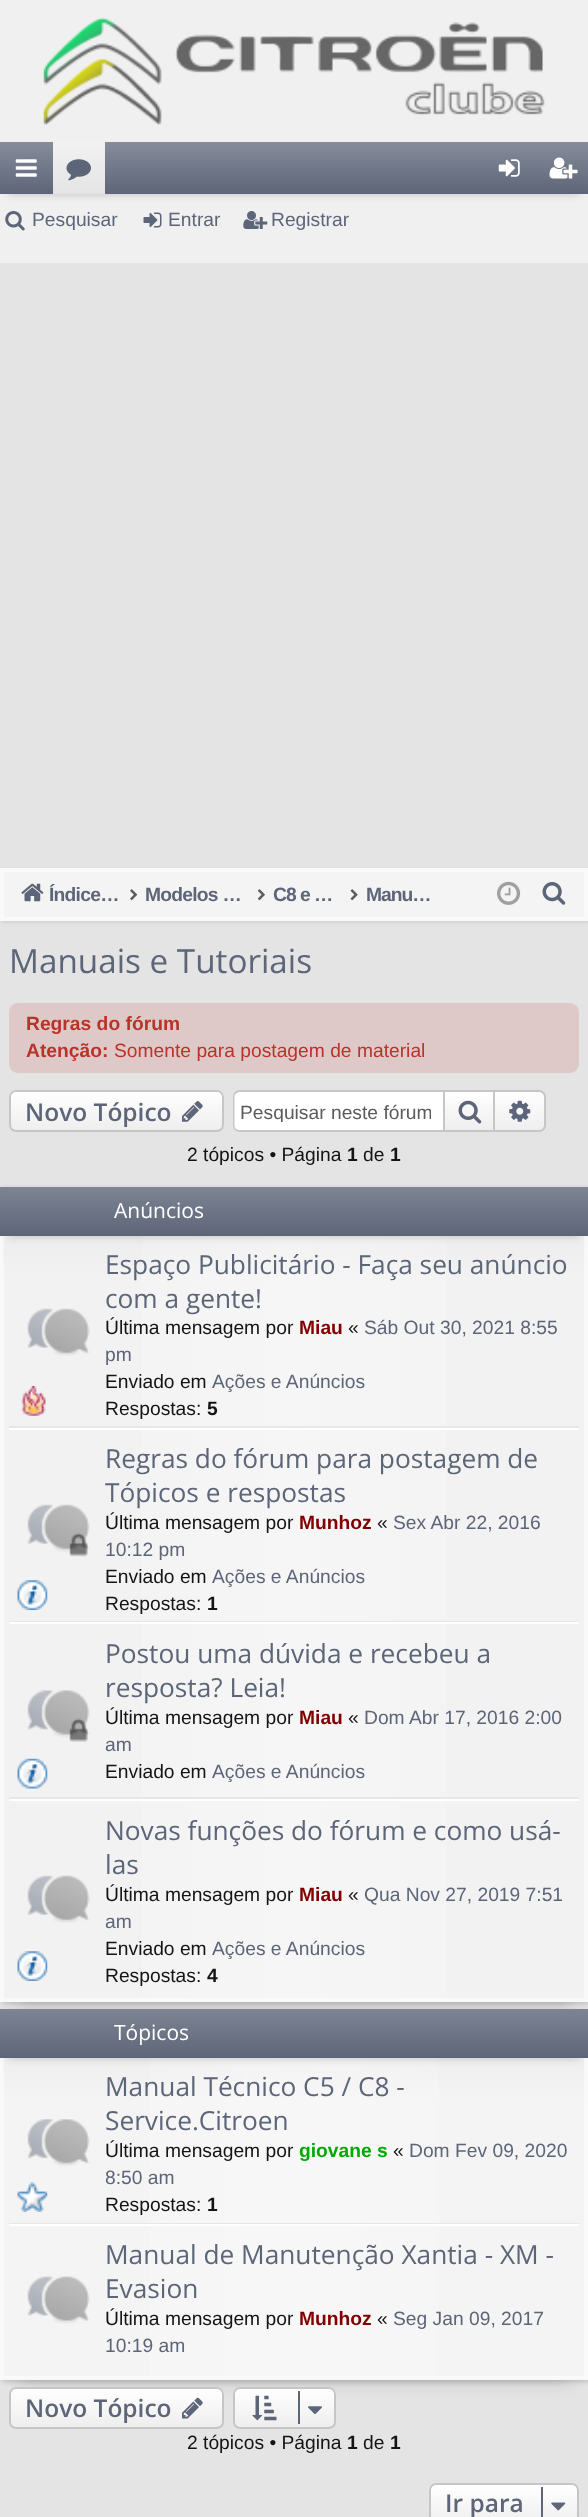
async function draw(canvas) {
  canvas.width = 588
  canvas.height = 2517
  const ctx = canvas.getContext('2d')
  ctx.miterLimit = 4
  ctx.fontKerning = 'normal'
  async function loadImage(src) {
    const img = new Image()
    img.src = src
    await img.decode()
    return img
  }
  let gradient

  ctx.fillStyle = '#f0f0f0'
  ctx.fillRect(0, 0, 588, 2517)
  ctx.drawImage(await loadImage('image0.png'), 43, 17, 502, 108)
  ctx.fillStyle = '#00000033'
  ctx.filter = 'blur(4.5px)'
  ctx.beginPath()
  ctx.rect(9, 159, 570, 35)
  ctx.fill()
  ctx.filter = 'none'
  gradient = ctx.createLinearGradient(294, 142, 294, 194)
  gradient.addColorStop(0, '#868c9a')
  gradient.addColorStop(1, '#5d6578')
  ctx.fillStyle = gradient
  ctx.fillRect(0, 142, 588, 52)
  ctx.drawImage(await loadImage('image1.png'), 15, 159, 22, 18)
  gradient = ctx.createLinearGradient(79, 142, 79, 194)
  gradient.addColorStop(0, '#f2f2f2')
  gradient.addColorStop(1, '#e4e4e4')
  ctx.fillStyle = gradient
  ctx.fillRect(53, 142, 52, 52)
  ctx.drawImage(await loadImage('image2.png'), 66, 159, 25, 22)
  ctx.drawImage(await loadImage('image3.png'), 498, 159, 22, 18)
  ctx.drawImage(await loadImage('image4.png'), 549, 157, 29, 22)
  ctx.drawImage(await loadImage('image5.png'), 5, 211, 20, 20)
  ctx.font = '19.25px Liberation Sans'
  ctx.fillStyle = '#5d6578'
  ctx.fillText('Pesquisar', 32, 226)
  ctx.drawImage(await loadImage('image6.png'), 143, 212, 19, 16)
  ctx.fillText('Entrar', 168, 226)
  ctx.drawImage(await loadImage('image7.png'), 243, 211, 25, 18)
  ctx.fillText('Registrar', 271, 226)
  ctx.fillStyle = '#e4e4e4'
  ctx.fillRect(0, 263, 588, 2254)
  ctx.fillStyle = '#0000001a'
  ctx.filter = 'blur(2px)'
  ctx.beginPath()
  ctx.rect(2, 870, 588, 52)
  ctx.fill()
  ctx.filter = 'none'
  ctx.fillStyle = '#f4f4f4'
  ctx.beginPath()
  ctx.rect(3, 871, 582, 47)
  ctx.fill()
  ctx.strokeStyle = '#fafafa'
  ctx.lineWidth = 2
  ctx.stroke()
  ctx.strokeStyle = '#f9f9f9'
  ctx.strokeRect(1, 869, 586, 51)
  ctx.drawImage(await loadImage('image8.png'), 21, 883, 23, 19)
  ctx.letterSpacing = '-0.75px'
  ctx.font = 'bold 19.25px Liberation Sans'
  ctx.fillStyle = '#5d6578'
  ctx.fillText('Índice…', 49, 901)
  ctx.drawImage(await loadImage('image9.png'), 130, 889, 8, 12)
  ctx.fillText('Modelos …', 145, 901)
  ctx.drawImage(await loadImage('image10.png'), 257, 889, 8, 12)
  ctx.letterSpacing = '-1px'
  ctx.fillText('C8 e …', 273, 901)
  ctx.drawImage(await loadImage('image11.png'), 350, 889, 8, 12)
  ctx.fillText('Manu…', 366, 901)
  ctx.drawImage(await loadImage('image12.png'), 497, 881, 24, 24)
  ctx.drawImage(await loadImage('image13.png'), 542, 882, 24, 23)
  ctx.letterSpacing = '0px'
  ctx.font = '33.25px Open Sans'
  ctx.fillText('Manuais e Tutoriais', 9, 973)
  ctx.fillStyle = '#dec9c8'
  ctx.beginPath()
  ctx.roundRect(9, 1003, 570, 70, 9)
  ctx.fill()
  ctx.font = 'bold 19.25px Liberation Sans'
  ctx.fillStyle = '#b93329'
  ctx.fillText('Regras do fórum', 26, 1030)
  ctx.fillText('Atenção:', 26, 1057)
  ctx.font = '19.25px Liberation Sans'
  ctx.fillText('Somente para postagem de material', 114, 1057)
  ctx.fillStyle = '#eee'
  ctx.beginPath()
  ctx.roundRect(9, 1090, 215, 42, 7)
  ctx.fill()
  ctx.save()
  ctx.beginPath()
  ctx.roundRect(9, 1090, 215, 42, 7)
  ctx.clip()
  gradient = ctx.createLinearGradient(116, 1092, 116, 1131)
  gradient.addColorStop(0, '#fff')
  gradient.addColorStop(1, '#ffffff00')
  ctx.fillStyle = gradient
  ctx.fillRect(9, 1092, 215, 38)
  ctx.restore()
  ctx.beginPath()
  ctx.roundRect(10, 1091, 213, 40, 6)
  ctx.strokeStyle = '#c6c6c6'
  ctx.stroke()
  ctx.font = '600 24.5px Open Sans'
  ctx.fillStyle = '#5d6578'
  ctx.fillText('Novo Tópico', 25, 1121)
  ctx.drawImage(await loadImage('image14.png'), 182, 1101, 21, 21)
  ctx.fillStyle = '#fff'
  ctx.beginPath()
  ctx.roundRect(235, 1092, 208, 39, [5, 0, 0, 5])
  ctx.fill()
  ctx.fillStyle = '#c6c6c6'
  ctx.beginPath()
  ctx.moveTo(240, 1090)
  ctx.lineTo(443, 1090)
  ctx.lineTo(443, 1132)
  ctx.lineTo(240, 1132)
  ctx.bezierCurveTo(236, 1132, 233, 1129, 233, 1125)
  ctx.lineTo(233, 1097)
  ctx.bezierCurveTo(233, 1093, 236, 1090, 240, 1090)
  ctx.closePath()
  ctx.moveTo(240, 1092)
  ctx.lineTo(443, 1092)
  ctx.lineTo(443, 1130)
  ctx.lineTo(240, 1130)
  ctx.bezierCurveTo(237, 1130, 234, 1128, 234, 1125)
  ctx.lineTo(234, 1097)
  ctx.bezierCurveTo(234, 1094, 237, 1092, 240, 1092)
  ctx.closePath()
  ctx.fill('evenodd')
  ctx.save()
  ctx.beginPath()
  ctx.rect(240, 1101, 191, 21)
  ctx.clip()
  ctx.font = '19.25px Liberation Sans'
  ctx.fillStyle = '#5b5b5b'
  ctx.fillText('Pesquisar neste fórum', 240, 1119)
  ctx.restore()
  gradient = ctx.createLinearGradient(469, 1092, 469, 1131)
  gradient.addColorStop(0, '#fff')
  gradient.addColorStop(1, '#eee')
  ctx.fillStyle = gradient
  ctx.fillRect(445, 1092, 48, 38)
  ctx.strokeRect(444, 1091, 50, 40)
  ctx.drawImage(await loadImage('image15.png'), 458, 1100, 24, 24)
  ctx.fillStyle = '#eee'
  ctx.beginPath()
  ctx.roundRect(495, 1092, 49, 39, [0, 5, 5, 0])
  ctx.fill()
  gradient = ctx.createLinearGradient(520, 1092, 520, 1131)
  gradient.addColorStop(0, '#fff')
  gradient.addColorStop(1, '#ffffff00')
  ctx.fillStyle = gradient
  ctx.beginPath()
  ctx.roundRect(495, 1092, 49, 39, [0, 5, 5, 0])
  ctx.fill()
  ctx.fillStyle = '#c6c6c6'
  ctx.beginPath()
  ctx.moveTo(495, 1090)
  ctx.lineTo(539, 1090)
  ctx.bezierCurveTo(543, 1090, 546, 1093, 546, 1097)
  ctx.lineTo(546, 1125)
  ctx.bezierCurveTo(546, 1129, 543, 1132, 539, 1132)
  ctx.lineTo(495, 1132)
  ctx.closePath()
  ctx.moveTo(495, 1092)
  ctx.lineTo(539, 1092)
  ctx.bezierCurveTo(542, 1092, 544, 1094, 544, 1097)
  ctx.lineTo(544, 1125)
  ctx.bezierCurveTo(544, 1128, 542, 1130, 539, 1130)
  ctx.lineTo(495, 1130)
  ctx.closePath()
  ctx.fill('evenodd')
  ctx.drawImage(await loadImage('image16.png'), 509, 1100, 22, 22)
  ctx.font = '19.25px Liberation Sans'
  ctx.fillStyle = '#141414'
  ctx.fillText('2 tópicos • Página', 187, 1161)
  ctx.font = 'bold 19.25px Liberation Sans'
  ctx.fillText('1', 347, 1161)
  ctx.font = '19.25px Liberation Sans'
  ctx.fillText('de', 363, 1161)
  ctx.font = 'bold 19.25px Liberation Sans'
  ctx.fillText('1', 390, 1161)
  ctx.fillStyle = '#00000033'
  ctx.filter = 'blur(9px)'
  ctx.beginPath()
  ctx.rect(18, 1222, 553, 780)
  ctx.fill()
  ctx.filter = 'none'
  ctx.fillStyle = '#00000026'
  ctx.filter = 'blur(2.5px)'
  ctx.beginPath()
  ctx.rect(2, 1188, 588, 816)
  ctx.fill()
  ctx.filter = 'none'
  gradient = ctx.createLinearGradient(294, 1188, 294, 2000)
  gradient.addColorStop(0, '#ebebeb')
  gradient.addColorStop(0.02, '#e9e9e9')
  gradient.addColorStop(0.11, '#f2f2f2')
  ctx.fillStyle = gradient
  ctx.fillRect(2, 1236, 584, 764)
  gradient = ctx.createLinearGradient(1.8, 1594, 586, 1594)
  gradient.addColorStop(0, '#ffffff00')
  gradient.addColorStop(0.5, '#ffffff4d')
  gradient.addColorStop(1, '#ffffff00')
  ctx.fillStyle = gradient
  ctx.fillRect(141, 1236, 306, 764)
  ctx.strokeStyle = '#ffffff80'
  ctx.strokeRect(3, 1189, 582, 810)
  ctx.strokeStyle = '#f9f9f9'
  ctx.strokeRect(1, 1188, 586, 813)
  ctx.fillStyle = '#00000033'
  ctx.filter = 'blur(4.5px)'
  ctx.beginPath()
  ctx.rect(9, 1204, 570, 32)
  ctx.fill()
  ctx.filter = 'none'
  gradient = ctx.createLinearGradient(294, 1187, 294, 1236)
  gradient.addColorStop(0, '#7d8493')
  gradient.addColorStop(1, '#5d6578')
  ctx.fillStyle = gradient
  ctx.fillRect(0, 1187, 588, 49)
  ctx.font = '21px Open Sans'
  ctx.fillStyle = '#fff'
  ctx.fillText('Anúncios', 114, 1218)
  ctx.fillStyle = '#e7e7e7'
  ctx.fillRect(9, 1426, 570, 2)
  ctx.drawImage(await loadImage('image17.png'), 27, 1308, 63, 48)
  ctx.drawImage(await loadImage('image18.png'), 21, 1386, 25, 30)
  ctx.font = '26.25px Open Sans'
  ctx.fillStyle = '#5d6578'
  ctx.fillText('Espaço Publicitário - Faça seu anúncio', 105, 1274)
  ctx.fillText('com a gente!', 105, 1308)
  ctx.font = '19.25px Liberation Sans'
  ctx.fillStyle = '#141414'
  ctx.fillText('Última mensagem por', 105, 1334)
  ctx.font = 'bold 19.25px Liberation Sans'
  ctx.fillStyle = '#800000'
  ctx.fillText('Miau', 299, 1334)
  ctx.font = '19.25px Liberation Sans'
  ctx.fillStyle = '#141414'
  ctx.fillText('«', 348, 1334)
  ctx.fillStyle = '#5d6578'
  ctx.fillText('Sáb Out 30, 2021 8:55', 364, 1334)
  ctx.fillText('pm', 105, 1361)
  ctx.fillStyle = '#141414'
  ctx.fillText('Enviado em', 105, 1388)
  ctx.fillStyle = '#5d6578'
  ctx.fillText('Ações e Anúncios', 212, 1388)
  ctx.fillStyle = '#141414'
  ctx.fillText('Respostas:', 105, 1415)
  ctx.font = 'bold 19.25px Liberation Sans'
  ctx.fillText('5', 207, 1415)
  ctx.fillStyle = '#fff'
  ctx.fillRect(9, 1428, 570, 2)
  ctx.fillStyle = '#e7e7e7'
  ctx.fillRect(9, 1621, 570, 1)
  ctx.drawImage(await loadImage('image19.png'), 27, 1504, 63, 53)
  ctx.drawImage(await loadImage('image20.png'), 17, 1580, 31, 30)
  ctx.font = '26.25px Open Sans'
  ctx.fillStyle = '#5d6578'
  ctx.fillText('Regras do fórum para postagem de', 105, 1468)
  ctx.fillText('Tópicos e respostas', 105, 1502)
  ctx.font = '19.25px Liberation Sans'
  ctx.fillStyle = '#141414'
  ctx.fillText('Última mensagem por', 105, 1529)
  ctx.font = 'bold 19.25px Liberation Sans'
  ctx.fillStyle = '#800000'
  ctx.fillText('Munhoz', 299, 1529)
  ctx.font = '19.25px Liberation Sans'
  ctx.fillStyle = '#141414'
  ctx.fillText('«', 377, 1529)
  ctx.fillStyle = '#5d6578'
  ctx.fillText('Sex Abr 22, 2016', 393, 1529)
  ctx.fillText('10:12 pm', 105, 1556)
  ctx.fillStyle = '#141414'
  ctx.fillText('Enviado em', 105, 1583)
  ctx.fillStyle = '#5d6578'
  ctx.fillText('Ações e Anúncios', 212, 1583)
  ctx.fillStyle = '#141414'
  ctx.fillText('Respostas:', 105, 1610)
  ctx.font = 'bold 19.25px Liberation Sans'
  ctx.fillText('1', 207, 1610)
  ctx.fillStyle = '#fff'
  ctx.fillRect(9, 1622, 570, 2)
  ctx.fillStyle = '#e7e7e7'
  ctx.fillRect(9, 1797, 570, 2)
  ctx.drawImage(await loadImage('image21.png'), 27, 1690, 63, 52)
  ctx.drawImage(await loadImage('image22.png'), 17, 1758, 31, 31)
  ctx.font = '26.25px Open Sans'
  ctx.fillStyle = '#5d6578'
  ctx.fillText('Postou uma dúvida e recebeu a', 105, 1663)
  ctx.fillText('resposta? Leia!', 105, 1697)
  ctx.font = '19.25px Liberation Sans'
  ctx.fillStyle = '#141414'
  ctx.fillText('Última mensagem por', 105, 1724)
  ctx.font = 'bold 19.25px Liberation Sans'
  ctx.fillStyle = '#800000'
  ctx.fillText('Miau', 299, 1724)
  ctx.font = '19.25px Liberation Sans'
  ctx.fillStyle = '#141414'
  ctx.fillText('«', 348, 1724)
  ctx.fillStyle = '#5d6578'
  ctx.fillText('Dom Abr 17, 2016 2:00', 364, 1724)
  ctx.fillText('am', 105, 1751)
  ctx.fillStyle = '#141414'
  ctx.fillText('Enviado em', 105, 1778)
  ctx.fillStyle = '#5d6578'
  ctx.fillText('Ações e Anúncios', 212, 1778)
  ctx.fillStyle = '#fff'
  ctx.fillRect(9, 1799, 570, 2)
  ctx.drawImage(await loadImage('image23.png'), 27, 1875, 63, 48)
  ctx.drawImage(await loadImage('image20.png'), 17, 1951, 31, 30)
  ctx.font = '26.25px Open Sans'
  ctx.fillStyle = '#5d6578'
  ctx.fillText('Novas funções do fórum e como usá-', 105, 1840)
  ctx.fillText('las', 105, 1874)
  ctx.font = '19.25px Liberation Sans'
  ctx.fillStyle = '#141414'
  ctx.fillText('Última mensagem por', 105, 1901)
  ctx.font = 'bold 19.25px Liberation Sans'
  ctx.fillStyle = '#800000'
  ctx.fillText('Miau', 299, 1901)
  ctx.font = '19.25px Liberation Sans'
  ctx.fillStyle = '#141414'
  ctx.fillText('«', 348, 1901)
  ctx.fillStyle = '#5d6578'
  ctx.fillText('Qua Nov 27, 2019 7:51', 364, 1901)
  ctx.fillText('am', 105, 1928)
  ctx.fillStyle = '#141414'
  ctx.fillText('Enviado em', 105, 1955)
  ctx.fillStyle = '#5d6578'
  ctx.fillText('Ações e Anúncios', 212, 1955)
  ctx.fillStyle = '#141414'
  ctx.fillText('Respostas:', 105, 1982)
  ctx.font = 'bold 19.25px Liberation Sans'
  ctx.fillText('4', 207, 1982)
  ctx.fillStyle = '#00000033'
  ctx.filter = 'blur(9px)'
  ctx.beginPath()
  ctx.rect(18, 2044, 553, 336)
  ctx.fill()
  ctx.filter = 'none'
  ctx.fillStyle = '#00000026'
  ctx.filter = 'blur(2.5px)'
  ctx.beginPath()
  ctx.rect(2, 2011, 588, 371)
  ctx.fill()
  ctx.filter = 'none'
  gradient = ctx.createLinearGradient(294, 2011, 294, 2378)
  gradient.addColorStop(0, '#ececec')
  gradient.addColorStop(0.05, '#eaeaea')
  gradient.addColorStop(0.24, '#f4f4f4')
  ctx.fillStyle = gradient
  ctx.fillRect(2, 2058, 584, 320)
  gradient = ctx.createLinearGradient(1.8, 2195, 586, 2195)
  gradient.addColorStop(0, '#ffffff00')
  gradient.addColorStop(0.5, '#ffffff4d')
  gradient.addColorStop(1, '#ffffff00')
  ctx.fillStyle = gradient
  ctx.fillRect(149, 2058, 290, 320)
  ctx.strokeStyle = '#ffffff80'
  ctx.strokeRect(3, 2012, 582, 365)
  ctx.strokeStyle = '#f9f9f9'
  ctx.strokeRect(1, 2010, 586, 369)
  ctx.fillStyle = '#00000033'
  ctx.filter = 'blur(4.5px)'
  ctx.beginPath()
  ctx.rect(9, 2027, 570, 31)
  ctx.fill()
  ctx.filter = 'none'
  gradient = ctx.createLinearGradient(294, 2009, 294, 2058)
  gradient.addColorStop(0, '#7d8493')
  gradient.addColorStop(1, '#5d6578')
  ctx.fillStyle = gradient
  ctx.fillRect(0, 2009, 588, 49)
  ctx.font = '21px Open Sans'
  ctx.fillStyle = '#fff'
  ctx.fillText('Tópicos', 114, 2040)
  ctx.fillStyle = '#e7e7e7'
  ctx.fillRect(9, 2223, 570, 1)
  ctx.drawImage(await loadImage('image24.png'), 27, 2119, 63, 47)
  ctx.drawImage(await loadImage('image25.png'), 17, 2182, 31, 30)
  ctx.font = '26.25px Open Sans'
  ctx.fillStyle = '#5d6578'
  ctx.fillText('Manual Técnico C5 / C8 -', 105, 2096)
  ctx.fillText('Service.Citroen', 105, 2130)
  ctx.font = '19.25px Liberation Sans'
  ctx.fillStyle = '#141414'
  ctx.fillText('Última mensagem por', 105, 2157)
  ctx.font = 'bold 19.25px Liberation Sans'
  ctx.fillStyle = '#0a0'
  ctx.fillText('giovane s', 299, 2157)
  ctx.font = '19.25px Liberation Sans'
  ctx.fillStyle = '#141414'
  ctx.fillText('«', 393, 2157)
  ctx.fillStyle = '#5d6578'
  ctx.fillText('Dom Fev 09, 2020', 409, 2157)
  ctx.fillText('8:50 am', 105, 2184)
  ctx.fillStyle = '#141414'
  ctx.fillText('Respostas:', 105, 2211)
  ctx.font = 'bold 19.25px Liberation Sans'
  ctx.fillText('1', 207, 2211)
  ctx.fillStyle = '#fff'
  ctx.fillRect(9, 2224, 570, 2)
  ctx.drawImage(await loadImage('image26.png'), 27, 2276, 63, 48)
  ctx.font = '26.25px Open Sans'
  ctx.fillStyle = '#5d6578'
  ctx.fillText('Manual de Manutenção Xantia - XM -', 105, 2264)
  ctx.fillText('Evasion', 105, 2298)
  ctx.font = '19.25px Liberation Sans'
  ctx.fillStyle = '#141414'
  ctx.fillText('Última mensagem por', 105, 2325)
  ctx.font = 'bold 19.25px Liberation Sans'
  ctx.fillStyle = '#800000'
  ctx.fillText('Munhoz', 299, 2325)
  ctx.font = '19.25px Liberation Sans'
  ctx.fillStyle = '#141414'
  ctx.fillText('«', 377, 2325)
  ctx.fillStyle = '#5d6578'
  ctx.fillText('Seg Jan 09, 2017', 393, 2325)
  ctx.fillText('10:19 am', 105, 2352)
  ctx.fillStyle = '#eee'
  ctx.beginPath()
  ctx.roundRect(9, 2387, 215, 42, 7)
  ctx.fill()
  ctx.save()
  ctx.beginPath()
  ctx.roundRect(9, 2387, 215, 42, 7)
  ctx.clip()
  gradient = ctx.createLinearGradient(116, 2389, 116, 2427)
  gradient.addColorStop(0, '#fff')
  gradient.addColorStop(1, '#ffffff00')
  ctx.fillStyle = gradient
  ctx.fillRect(9, 2389, 215, 37)
  ctx.restore()
  ctx.beginPath()
  ctx.roundRect(10, 2388, 213, 40, 6)
  ctx.strokeStyle = '#c6c6c6'
  ctx.stroke()
  ctx.font = '600 24.5px Open Sans'
  ctx.fillStyle = '#5d6578'
  ctx.fillText('Novo Tópico', 25, 2417)
  ctx.drawImage(await loadImage('image27.png'), 182, 2397, 21, 22)
  ctx.fillStyle = '#eee'
  ctx.beginPath()
  ctx.roundRect(233, 2387, 103, 42, 7)
  ctx.fill()
  ctx.save()
  ctx.beginPath()
  ctx.roundRect(233, 2387, 103, 42, 7)
  ctx.clip()
  gradient = ctx.createLinearGradient(284, 2389, 284, 2427)
  gradient.addColorStop(0, '#fff')
  gradient.addColorStop(1, '#ffffff00')
  ctx.fillStyle = gradient
  ctx.fillRect(233, 2389, 103, 37)
  ctx.restore()
  ctx.beginPath()
  ctx.roundRect(234, 2388, 101, 40, 6)
  ctx.stroke()
  ctx.drawImage(await loadImage('image28.png'), 252, 2395, 25, 26)
  ctx.fillStyle = '#5d6578'
  ctx.fillRect(298, 2391, 2, 33)
  ctx.drawImage(await loadImage('image29.png'), 308, 2406, 14, 8)
  ctx.font = '19.25px Liberation Sans'
  ctx.fillStyle = '#141414'
  ctx.fillText('2 tópicos • Página', 187, 2449)
  ctx.font = 'bold 19.25px Liberation Sans'
  ctx.fillText('1', 347, 2449)
  ctx.font = '19.25px Liberation Sans'
  ctx.fillText('de', 363, 2449)
  ctx.font = 'bold 19.25px Liberation Sans'
  ctx.fillText('1', 390, 2449)
  ctx.fillStyle = '#eee'
  ctx.beginPath()
  ctx.roundRect(429, 2483, 150, 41, 7)
  ctx.fill()
  ctx.save()
  ctx.beginPath()
  ctx.roundRect(429, 2483, 150, 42, 7)
  ctx.clip()
  gradient = ctx.createLinearGradient(504, 2485, 504, 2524)
  gradient.addColorStop(0, '#fff')
  gradient.addColorStop(1, '#ffffff00')
  ctx.fillStyle = gradient
  ctx.fillRect(429, 2485, 150, 32)
  ctx.restore()
  ctx.beginPath()
  ctx.roundRect(430, 2484, 148, 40, 6)
  ctx.stroke()
  ctx.font = '600 24.5px Open Sans'
  ctx.fillStyle = '#5d6578'
  ctx.fillText('Ir para', 445, 2512)
  ctx.fillRect(541, 2487, 2, 30)
  ctx.drawImage(await loadImage('image30.png'), 551, 2502, 15, 9)
}

draw(document.querySelector('canvas'))
